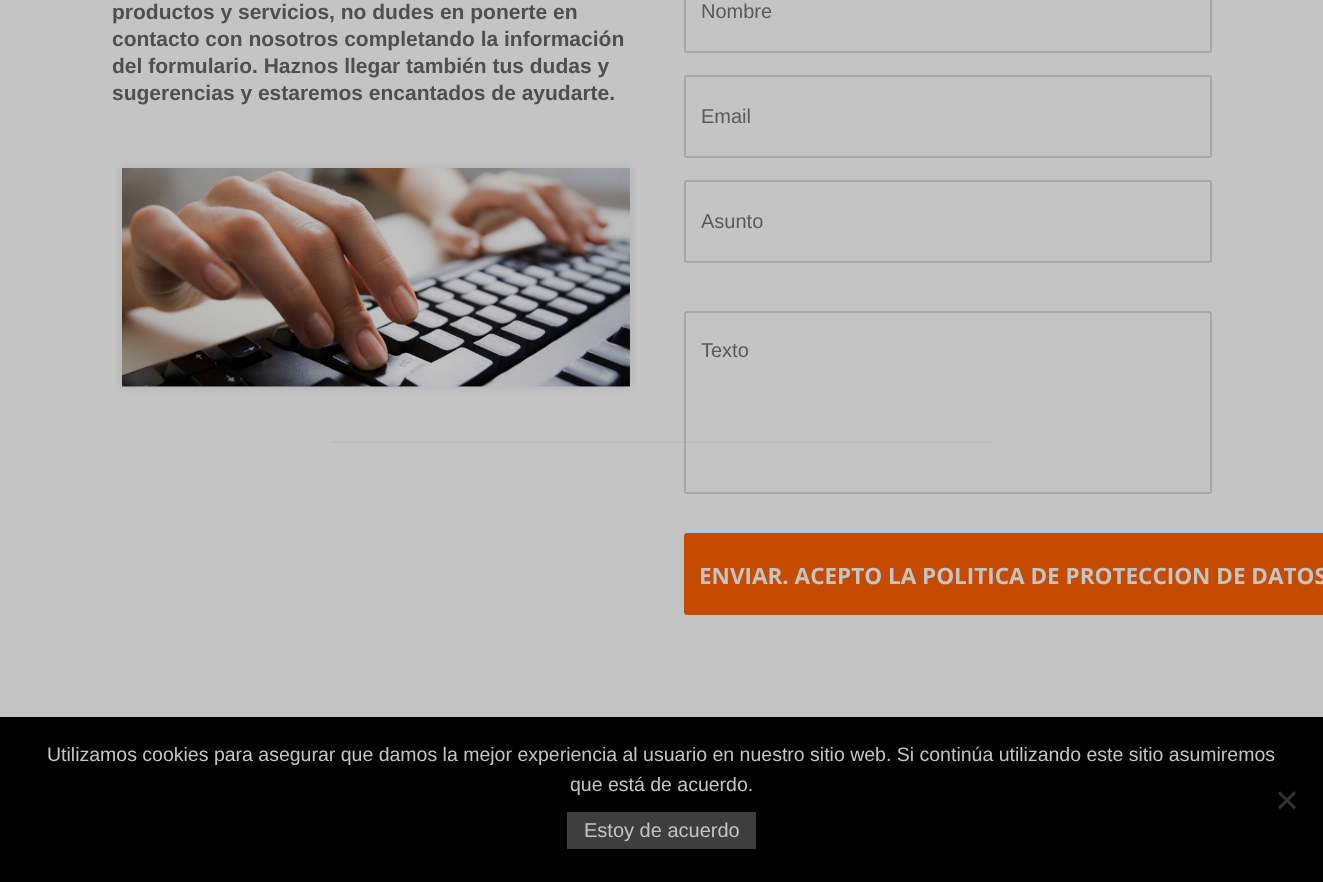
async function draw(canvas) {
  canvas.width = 1323
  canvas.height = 882
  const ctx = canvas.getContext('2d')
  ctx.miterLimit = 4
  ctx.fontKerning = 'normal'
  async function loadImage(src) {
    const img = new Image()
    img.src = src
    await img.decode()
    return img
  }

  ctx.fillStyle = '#c4c4c4'
  ctx.fillRect(0, 0, 1323, 882)
  ctx.font = 'bold 21px Liberation Sans'
  ctx.fillStyle = '#4f4f4f'
  ctx.fillText('productos y servicios, no dudes en ponerte en', 112, 19)
  ctx.fillText('contacto con nosotros completando la información', 112, 46)
  ctx.fillText('del formulario. Haznos llegar también tus dudas y', 112, 73)
  ctx.fillText('sugerencias y estaremos encantados de ayudarte.', 112, 100)
  ctx.fillStyle = '#0000001a'
  ctx.filter = 'blur(4px)'
  ctx.beginPath()
  ctx.rect(122, 168, 508, 219)
  ctx.fill()
  ctx.filter = 'none'
  ctx.drawImage(await loadImage('image0.png'), 122, 168, 508, 219)
  ctx.beginPath()
  ctx.roundRect(685, -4, 526, 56, 2)
  ctx.strokeStyle = '#a7a7a7'
  ctx.lineWidth = 2
  ctx.stroke()
  ctx.font = '20px Liberation Sans'
  ctx.fillStyle = '#5a5a5a'
  ctx.fillText('Nombre', 701, 18)
  ctx.beginPath()
  ctx.roundRect(685, 76, 526, 81, 2)
  ctx.stroke()
  ctx.fillText('Email', 701, 123)
  ctx.beginPath()
  ctx.roundRect(685, 181, 526, 81, 2)
  ctx.stroke()
  ctx.fillText('Asunto', 701, 228)
  ctx.beginPath()
  ctx.roundRect(685, 312, 526, 181, 2)
  ctx.stroke()
  ctx.fillText('Texto', 701, 357)
  ctx.fillStyle = '#c44c00'
  ctx.beginPath()
  ctx.roundRect(684, 533, 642, 82, 3)
  ctx.fill()
  ctx.font = 'bold 22.5px Open Sans'
  ctx.fillStyle = '#c4c4c4'
  ctx.fillText('ENVIAR. ACEPTO LA POLITICA DE PROTECCION DE DATOS', 699, 584)
  ctx.fillStyle = '#aaaaaa3b'
  ctx.fillRect(332, 441, 661, 2)
  ctx.fillStyle = '#000'
  ctx.fillRect(0, 717, 1323, 165)
  ctx.font = '19.5px Liberation Sans'
  ctx.fillStyle = '#c4c4c4'
  ctx.fillText('Utilizamos cookies para asegurar que damos la mejor experiencia al usuario en nuestro sitio web. Si continúa utilizando este sitio asumiremos', 47, 761)
  ctx.fillText('que está de acuerdo.', 570, 791)
  ctx.fillStyle = '#313131'
  ctx.beginPath()
  ctx.moveTo(1294, 791)
  ctx.lineTo(1296, 793.5)
  ctx.lineTo(1280, 809.5)
  ctx.lineTo(1278, 807)
  ctx.closePath()
  ctx.fill()
  ctx.beginPath()
  ctx.moveTo(1278, 793.5)
  ctx.lineTo(1280, 791)
  ctx.lineTo(1296, 807)
  ctx.lineTo(1294, 809.5)
  ctx.closePath()
  ctx.fill()
  ctx.fillStyle = '#3e3e3e'
  ctx.fillRect(567, 812, 189, 37)
  ctx.font = '20px Liberation Sans'
  ctx.fillStyle = '#c4c4c4'
  ctx.fillText('Estoy de acuerdo', 584, 837)
}

draw(document.querySelector('canvas'))
